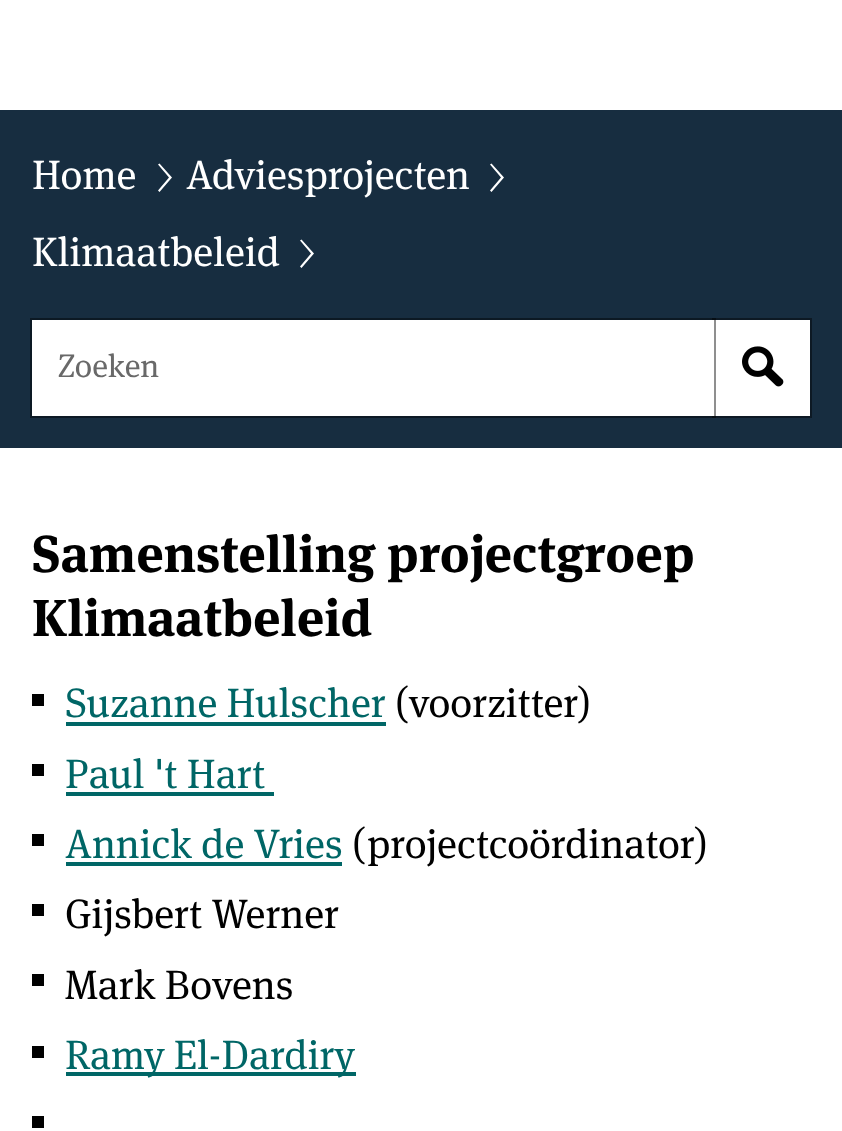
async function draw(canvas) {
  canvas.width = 842
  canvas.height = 1131
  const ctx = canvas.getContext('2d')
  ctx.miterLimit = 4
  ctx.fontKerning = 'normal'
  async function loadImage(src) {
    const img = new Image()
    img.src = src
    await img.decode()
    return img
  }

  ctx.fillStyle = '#fff'
  ctx.fillRect(0, 0, 842, 1131)
  ctx.fillStyle = '#172d40'
  ctx.fillRect(0, 110, 842, 338)
  ctx.font = '41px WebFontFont'
  ctx.fillStyle = '#fff'
  ctx.fillText('Home', 32, 189)
  ctx.beginPath()
  ctx.moveTo(159.5, 192)
  ctx.lineTo(158, 190.5)
  ctx.lineTo(169, 177.5)
  ctx.lineTo(158, 164.5)
  ctx.lineTo(159.5, 163.5)
  ctx.lineTo(172, 177.5)
  ctx.closePath()
  ctx.fill()
  ctx.fillText('Adviesprojecten', 186, 189)
  ctx.beginPath()
  ctx.moveTo(491.5, 192)
  ctx.lineTo(490, 190.5)
  ctx.lineTo(501, 177.5)
  ctx.lineTo(490, 164.5)
  ctx.lineTo(491.5, 163.5)
  ctx.lineTo(504, 177.5)
  ctx.closePath()
  ctx.fill()
  ctx.fillText('Klimaatbeleid', 32, 266)
  ctx.beginPath()
  ctx.moveTo(301.5, 268)
  ctx.lineTo(300, 266.5)
  ctx.lineTo(311, 253.5)
  ctx.lineTo(300, 240.5)
  ctx.lineTo(301.5, 239.5)
  ctx.lineTo(314, 253.5)
  ctx.closePath()
  ctx.fill()
  ctx.beginPath()
  ctx.rect(713, 319, 98, 98)
  ctx.fill()
  ctx.strokeStyle = '#0d1924'
  ctx.lineWidth = 2
  ctx.stroke()
  ctx.strokeStyle = '#00000070'
  ctx.strokeRect(31, 319, 684, 98)
  ctx.fillRect(32, 320, 682, 96)
  ctx.font = '32.5px WebFontFont'
  ctx.fillStyle = '#696969'
  ctx.fillText('Zoeken', 58, 377)
  ctx.drawImage(await loadImage('image0.png'), 742, 346, 42, 41)
  ctx.font = 'bold 51.9px WebFontFont'
  ctx.fillStyle = '#000'
  ctx.fillText('Samenstelling projectgroep', 32, 572)
  ctx.fillText('Klimaatbeleid', 32, 636)
  ctx.fillRect(32, 694, 12, 12)
  ctx.font = '41px WebFontFont'
  ctx.fillStyle = '#066'
  ctx.fillText('Suzanne Hulscher', 65, 717)
  ctx.fillRect(66, 722, 320, 4)
  ctx.fillStyle = '#000'
  ctx.fillText('(voorzitter)', 395, 717)
  ctx.fillRect(32, 764, 12, 12)
  ctx.fillStyle = '#066'
  ctx.fillText('Paul \'t Hart', 65, 788)
  ctx.fillRect(66, 792, 208, 4)
  ctx.fillStyle = '#000'
  ctx.fillRect(32, 834, 12, 12)
  ctx.fillStyle = '#066'
  ctx.fillText('Annick de Vries', 65, 858)
  ctx.fillRect(66, 862, 276, 4)
  ctx.fillStyle = '#000'
  ctx.fillText('(projectcoördinator)', 352, 858)
  ctx.fillRect(32, 904, 12, 12)
  ctx.fillText('Gijsbert Werner', 65, 928)
  ctx.fillRect(32, 974, 12, 12)
  ctx.fillText('Mark Bovens', 65, 999)
  ctx.fillRect(32, 1046, 12, 12)
  ctx.fillStyle = '#066'
  ctx.fillRect(66, 1072, 290, 4)
  ctx.fillText('Ramy El-Dardiry', 65, 1069)
  ctx.fillStyle = '#000'
  ctx.fillRect(32, 1116, 12, 12)
}

draw(document.querySelector('canvas'))
